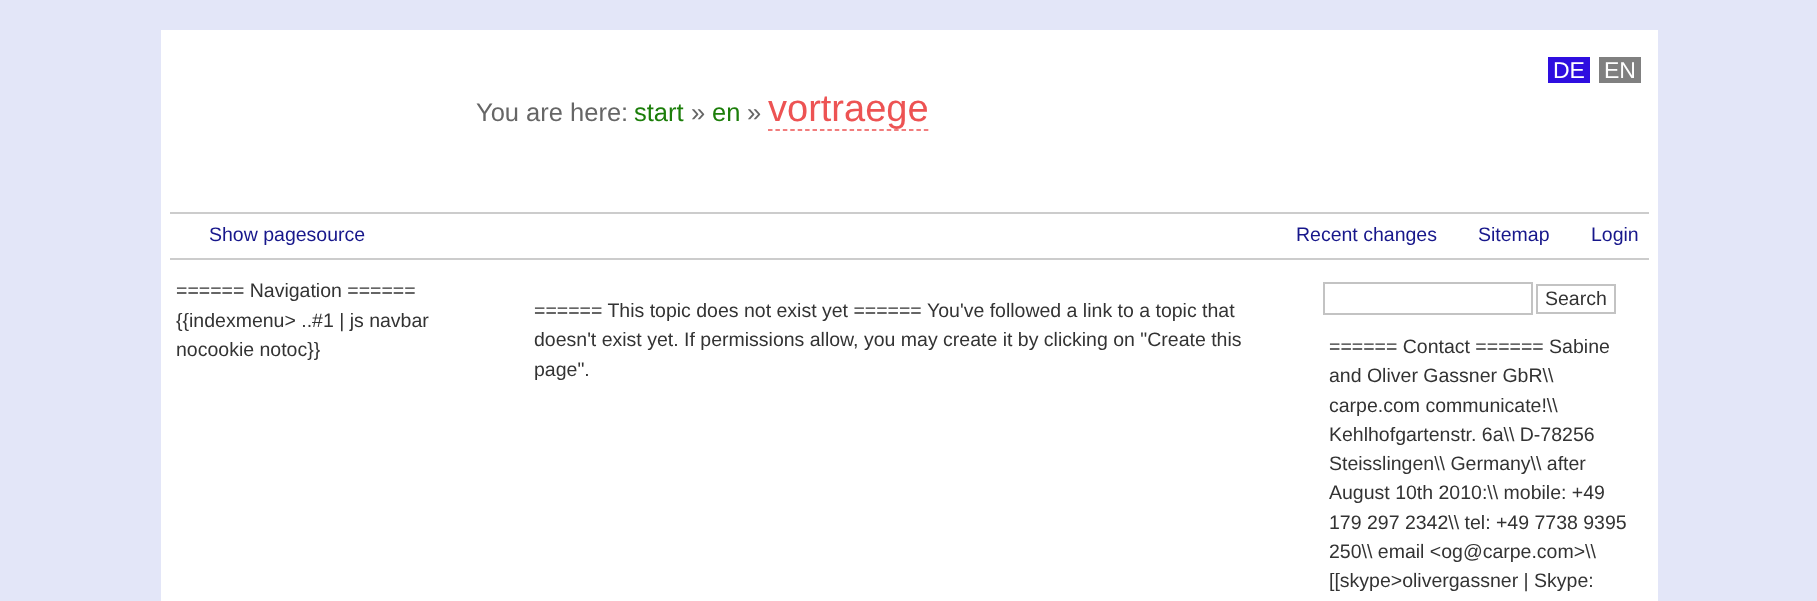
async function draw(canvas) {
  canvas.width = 1817
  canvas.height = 601
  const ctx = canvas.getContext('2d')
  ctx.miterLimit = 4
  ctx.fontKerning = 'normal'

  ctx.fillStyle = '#e3e6f8'
  ctx.fillRect(0, 0, 1817, 601)
  ctx.fillStyle = '#fff'
  ctx.fillRect(161, 30, 1497, 571)
  ctx.fillStyle = '#2e0ee0'
  ctx.fillRect(1548, 57, 42, 26)
  ctx.font = '23px Liberation Sans'
  ctx.fillStyle = '#fff'
  ctx.fillText('DE', 1553, 78)
  ctx.fillStyle = '#808080'
  ctx.fillRect(1599, 57, 42, 26)
  ctx.fillStyle = '#fff'
  ctx.fillText('EN', 1604, 78)
  ctx.font = '25.5px Liberation Sans'
  ctx.fillStyle = '#666'
  ctx.fillText('You are here:', 476, 121)
  ctx.fillStyle = '#1c7e0a'
  ctx.fillText('start', 634, 121)
  ctx.fillStyle = '#666'
  ctx.fillText('»', 691, 121)
  ctx.fillStyle = '#1c7e0a'
  ctx.fillText('en', 712, 121)
  ctx.fillStyle = '#666'
  ctx.fillText('»', 747, 121)
  ctx.font = '38px Liberation Sans'
  ctx.fillStyle = '#ed5353'
  ctx.fillText('vortraege', 768, 121)
  ctx.beginPath()
  ctx.moveTo(768, 130)
  ctx.lineTo(928.5, 130)
  ctx.strokeStyle = '#ed5353'
  ctx.lineWidth = 1.5
  ctx.setLineDash([4.5, 2.92])
  ctx.stroke()
  ctx.fillStyle = '#ccc'
  ctx.fillRect(170, 212, 1479, 2)
  ctx.fillRect(170, 258, 1479, 2)
  ctx.font = '19.5px Liberation Sans'
  ctx.fillStyle = '#17178b'
  ctx.fillText('Show pagesource', 209, 241)
  ctx.fillText('Recent changes', 1296, 241)
  ctx.fillText('Sitemap', 1478, 241)
  ctx.fillText('Login', 1591, 241)
  ctx.fillStyle = '#333'
  ctx.fillText('====== Navigation ======', 176, 297)
  ctx.fillText('{{indexmenu> ..#1 | js navbar', 176, 327)
  ctx.fillText('nocookie notoc}}', 176, 356)
  ctx.fillText('====== This topic does not exist yet ======', 534, 317)
  ctx.fillText('You\'ve followed a link to a topic that', 927, 317)
  ctx.fillText('doesn\'t exist yet. If permissions allow, you may create it by clicking on "Create this', 534, 346)
  ctx.fillText('page".', 534, 376)
  ctx.strokeStyle = '#c3c3c3'
  ctx.lineWidth = 2
  ctx.setLineDash([])
  ctx.strokeRect(1324, 283, 208, 31)
  ctx.strokeRect(1537, 285, 78, 28)
  ctx.fillText('Search', 1545, 305)
  ctx.fillText('====== Contact ====== Sabine', 1329, 353)
  ctx.fillText('and Oliver Gassner GbR\\\\', 1329, 382)
  ctx.fillText('carpe.com communicate!\\\\', 1329, 412)
  ctx.fillText('Kehlhofgartenstr. 6a\\\\ D-78256', 1329, 441)
  ctx.fillText('Steisslingen\\\\ Germany\\\\ after', 1329, 470)
  ctx.fillText('August 10th 2010:\\\\ mobile: +49', 1329, 499)
  ctx.fillText('179 297 2342\\\\ tel: +49 7738 9395', 1329, 529)
  ctx.fillText('250\\\\ email <og@carpe.com>\\\\', 1329, 558)
  ctx.fillText('[[skype>olivergassner | Skype:', 1329, 587)
}

draw(document.querySelector('canvas'))
